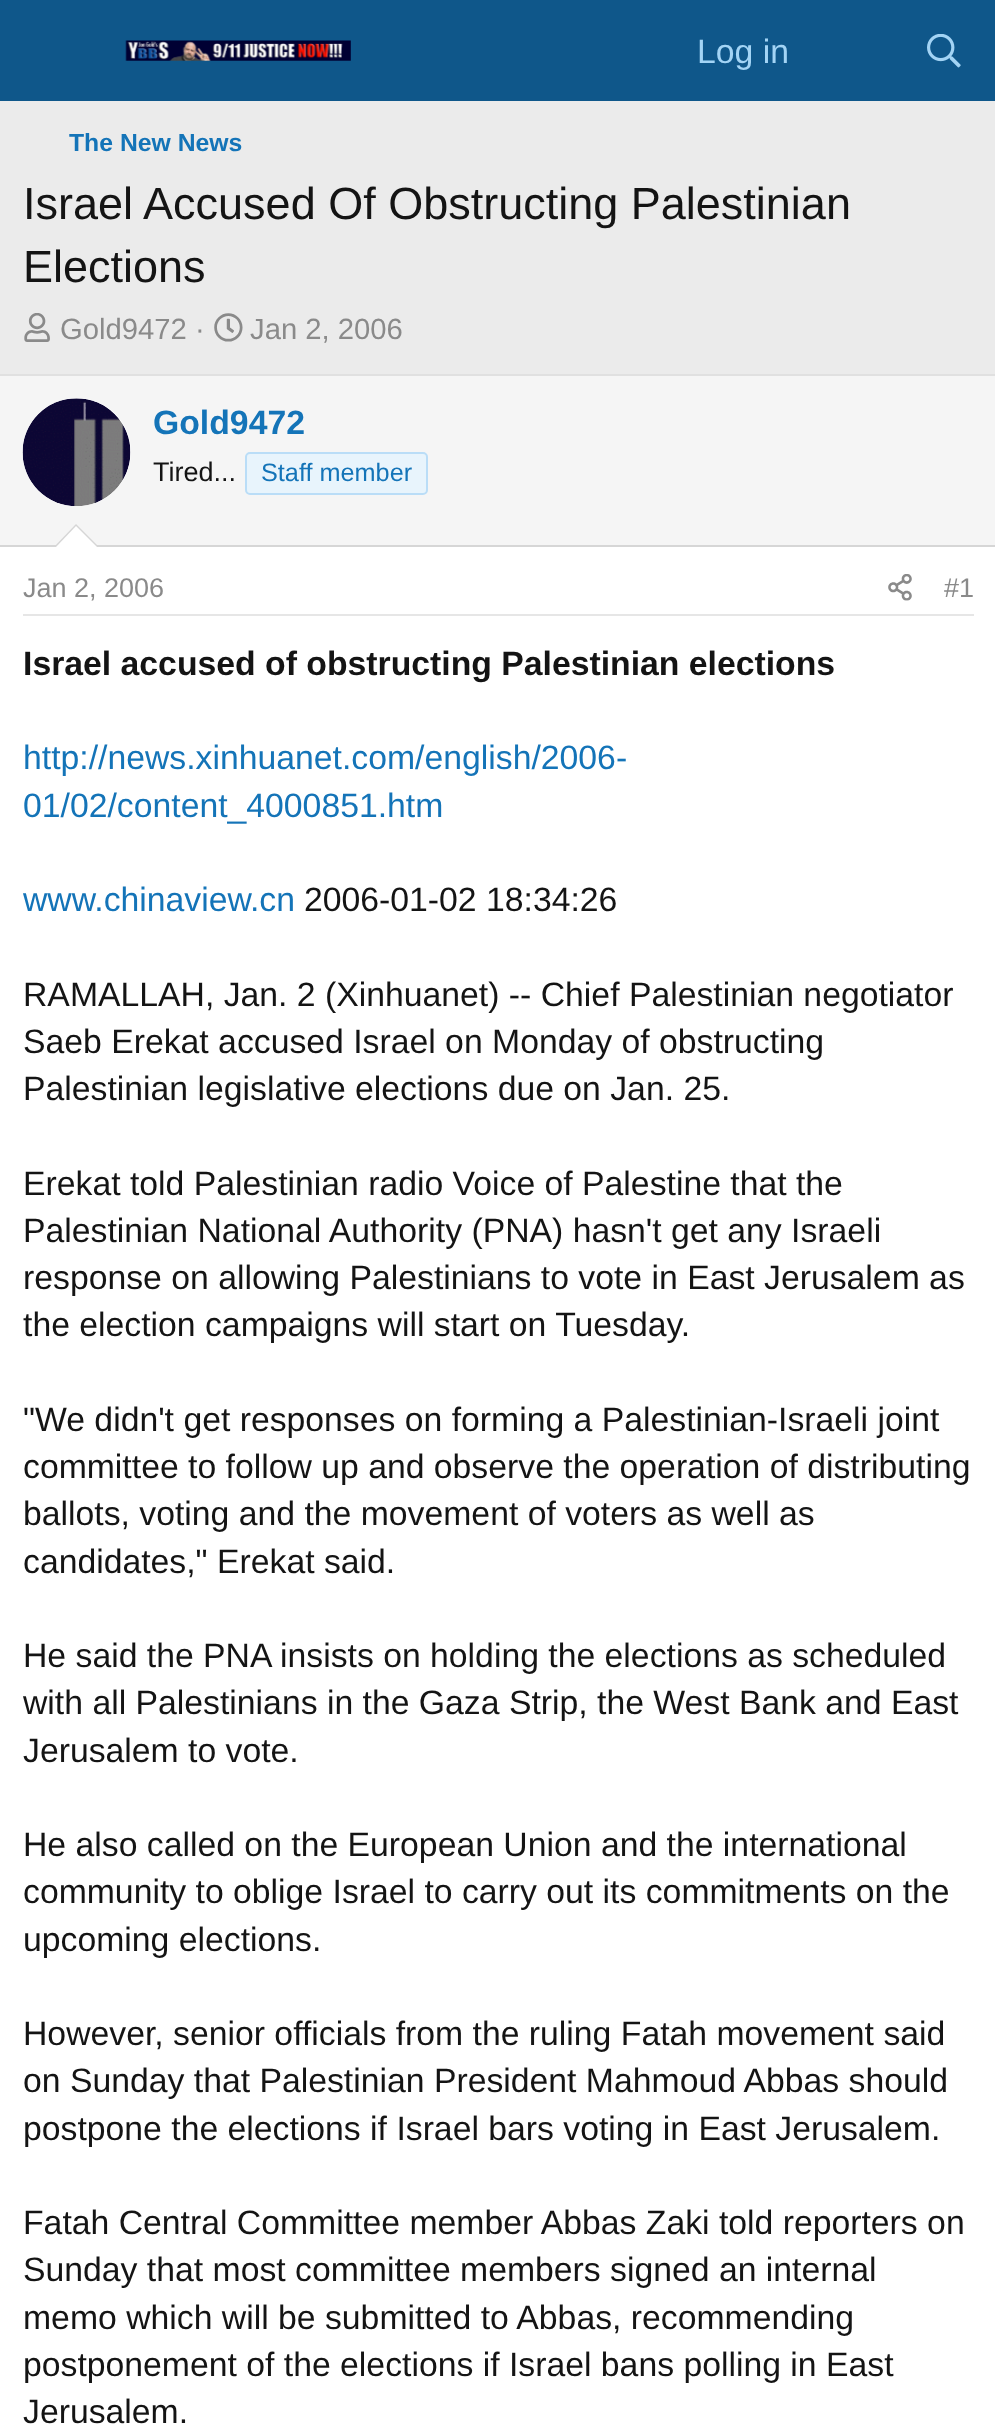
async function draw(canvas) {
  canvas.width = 995
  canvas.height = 2433
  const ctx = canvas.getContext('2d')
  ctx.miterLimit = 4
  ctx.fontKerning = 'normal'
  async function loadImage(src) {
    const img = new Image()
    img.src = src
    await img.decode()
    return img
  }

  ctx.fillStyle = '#ebebeb'
  ctx.fillRect(0, 0, 995, 2433)
  ctx.fillStyle = '#0f578a'
  ctx.fillRect(0, 0, 995, 101)
  ctx.drawImage(await loadImage('image0.png'), 125, 40, 226, 21)
  ctx.font = '33.75px Liberation Sans'
  ctx.fillStyle = '#a3d4f5'
  ctx.fillText('Log in', 697, 63)
  ctx.drawImage(await loadImage('image1.png'), 927, 34, 34, 34)
  ctx.font = 'bold 24.75px Liberation Sans'
  ctx.fillStyle = '#1474b8'
  ctx.fillText('The New News', 69, 151)
  ctx.font = '45px Liberation Sans'
  ctx.fillStyle = '#141414'
  ctx.fillText('Israel Accused Of Obstructing Palestinian', 23, 219)
  ctx.fillText('Elections', 23, 282)
  ctx.drawImage(await loadImage('image2.png'), 24, 313, 26, 29)
  ctx.font = '29.25px Liberation Sans'
  ctx.fillStyle = '#8a8a8a'
  ctx.fillText('Gold9472 ·', 60, 339)
  ctx.drawImage(await loadImage('image3.png'), 214, 313, 29, 29)
  ctx.fillText('Jan 2, 2006', 250, 339)
  ctx.fillStyle = '#fff'
  ctx.fillRect(0, 547, 995, 1886)
  ctx.fillStyle = '#e0e0e0'
  ctx.fillRect(0, 374, 995, 2)
  ctx.fillStyle = '#f5f5f5'
  ctx.fillRect(0, 376, 995, 169)
  ctx.fillStyle = '#d6d6d6'
  ctx.fillRect(0, 545, 995, 2)
  ctx.fillStyle = '#fff'
  ctx.beginPath()
  ctx.arc(77, 452, 54, 0, 2 * Math.PI)
  ctx.fill()
  ctx.drawImage(await loadImage('image4.png'), 22, 398, 109, 108)
  ctx.font = 'bold 33.75px Liberation Sans'
  ctx.fillStyle = '#1474b8'
  ctx.fillText('Gold9472', 153, 434)
  ctx.font = '27px Liberation Sans'
  ctx.fillStyle = '#141414'
  ctx.fillText('Tired...', 153, 481)
  ctx.fillStyle = '#e8f4fc'
  ctx.beginPath()
  ctx.roundRect(246, 453, 181, 41, 4)
  ctx.fill()
  ctx.strokeStyle = '#baddf7'
  ctx.lineWidth = 2
  ctx.stroke()
  ctx.font = '25.25px Liberation Sans'
  ctx.fillStyle = '#1474b8'
  ctx.fillText('Staff member', 261, 481)
  ctx.fillStyle = '#d6d6d6'
  ctx.beginPath()
  ctx.moveTo(99, 547)
  ctx.lineTo(54, 547)
  ctx.lineTo(76, 524)
  ctx.closePath()
  ctx.fill()
  ctx.fillStyle = '#fff'
  ctx.beginPath()
  ctx.moveTo(97, 547)
  ctx.lineTo(56, 547)
  ctx.lineTo(76, 526)
  ctx.closePath()
  ctx.fill()
  ctx.fillStyle = '#e6e6e6'
  ctx.fillRect(23, 614, 951, 2)
  ctx.font = '27px Liberation Sans'
  ctx.fillStyle = '#8a8a8a'
  ctx.fillText('Jan 2, 2006', 23, 597)
  ctx.drawImage(await loadImage('image5.png'), 888, 574, 24, 27)
  ctx.fillText('#1', 944, 597)
  ctx.font = 'bold 33.75px Liberation Sans'
  ctx.fillStyle = '#141414'
  ctx.fillText('Israel accused of obstructing Palestinian elections', 23, 675)
  ctx.font = '33.75px Liberation Sans'
  ctx.fillStyle = '#1474b8'
  ctx.fillText('http://news.xinhuanet.com/english/2006-', 23, 769)
  ctx.fillText('01/02/content_4000851.htm', 23, 817)
  ctx.fillText('www.chinaview.cn', 23, 911)
  ctx.fillStyle = '#141414'
  ctx.fillText('2006-01-02 18:34:26', 304, 911)
  ctx.fillText('RAMALLAH, Jan. 2 (Xinhuanet) -- Chief Palestinian negotiator', 23, 1006)
  ctx.fillText('Saeb Erekat accused Israel on Monday of obstructing', 23, 1053)
  ctx.fillText('Palestinian legislative elections due on Jan. 25.', 23, 1100)
  ctx.fillText('Erekat told Palestinian radio Voice of Palestine that the', 23, 1195)
  ctx.fillText('Palestinian National Authority (PNA) hasn\'t get any Israeli', 23, 1242)
  ctx.fillText('response on allowing Palestinians to vote in East Jerusalem as', 23, 1289)
  ctx.fillText('the election campaigns will start on Tuesday.', 23, 1336)
  ctx.fillText('"We didn\'t get responses on forming a Palestinian-Israeli joint', 23, 1431)
  ctx.fillText('committee to follow up and observe the operation of distributing', 23, 1478)
  ctx.fillText('ballots, voting and the movement of voters as well as', 23, 1525)
  ctx.fillText('candidates," Erekat said.', 23, 1573)
  ctx.fillText('He said the PNA insists on holding the elections as scheduled', 23, 1667)
  ctx.fillText('with all Palestinians in the Gaza Strip, the West Bank and East', 23, 1714)
  ctx.fillText('Jerusalem to vote.', 23, 1762)
  ctx.fillText('He also called on the European Union and the international', 23, 1856)
  ctx.fillText('community to oblige Israel to carry out its commitments on the', 23, 1903)
  ctx.fillText('upcoming elections.', 23, 1951)
  ctx.fillText('However, senior officials from the ruling Fatah movement said', 23, 2045)
  ctx.fillText('on Sunday that Palestinian President Mahmoud Abbas should', 23, 2092)
  ctx.fillText('postpone the elections if Israel bars voting in East Jerusalem.', 23, 2140)
  ctx.fillText('Fatah Central Committee member Abbas Zaki told reporters on', 23, 2234)
  ctx.fillText('Sunday that most committee members signed an internal', 23, 2281)
  ctx.fillText('memo which will be submitted to Abbas, recommending', 23, 2329)
  ctx.fillText('postponement of the elections if Israel bans polling in East', 23, 2376)
  ctx.fillText('Jerusalem.', 23, 2423)
}

draw(document.querySelector('canvas'))
